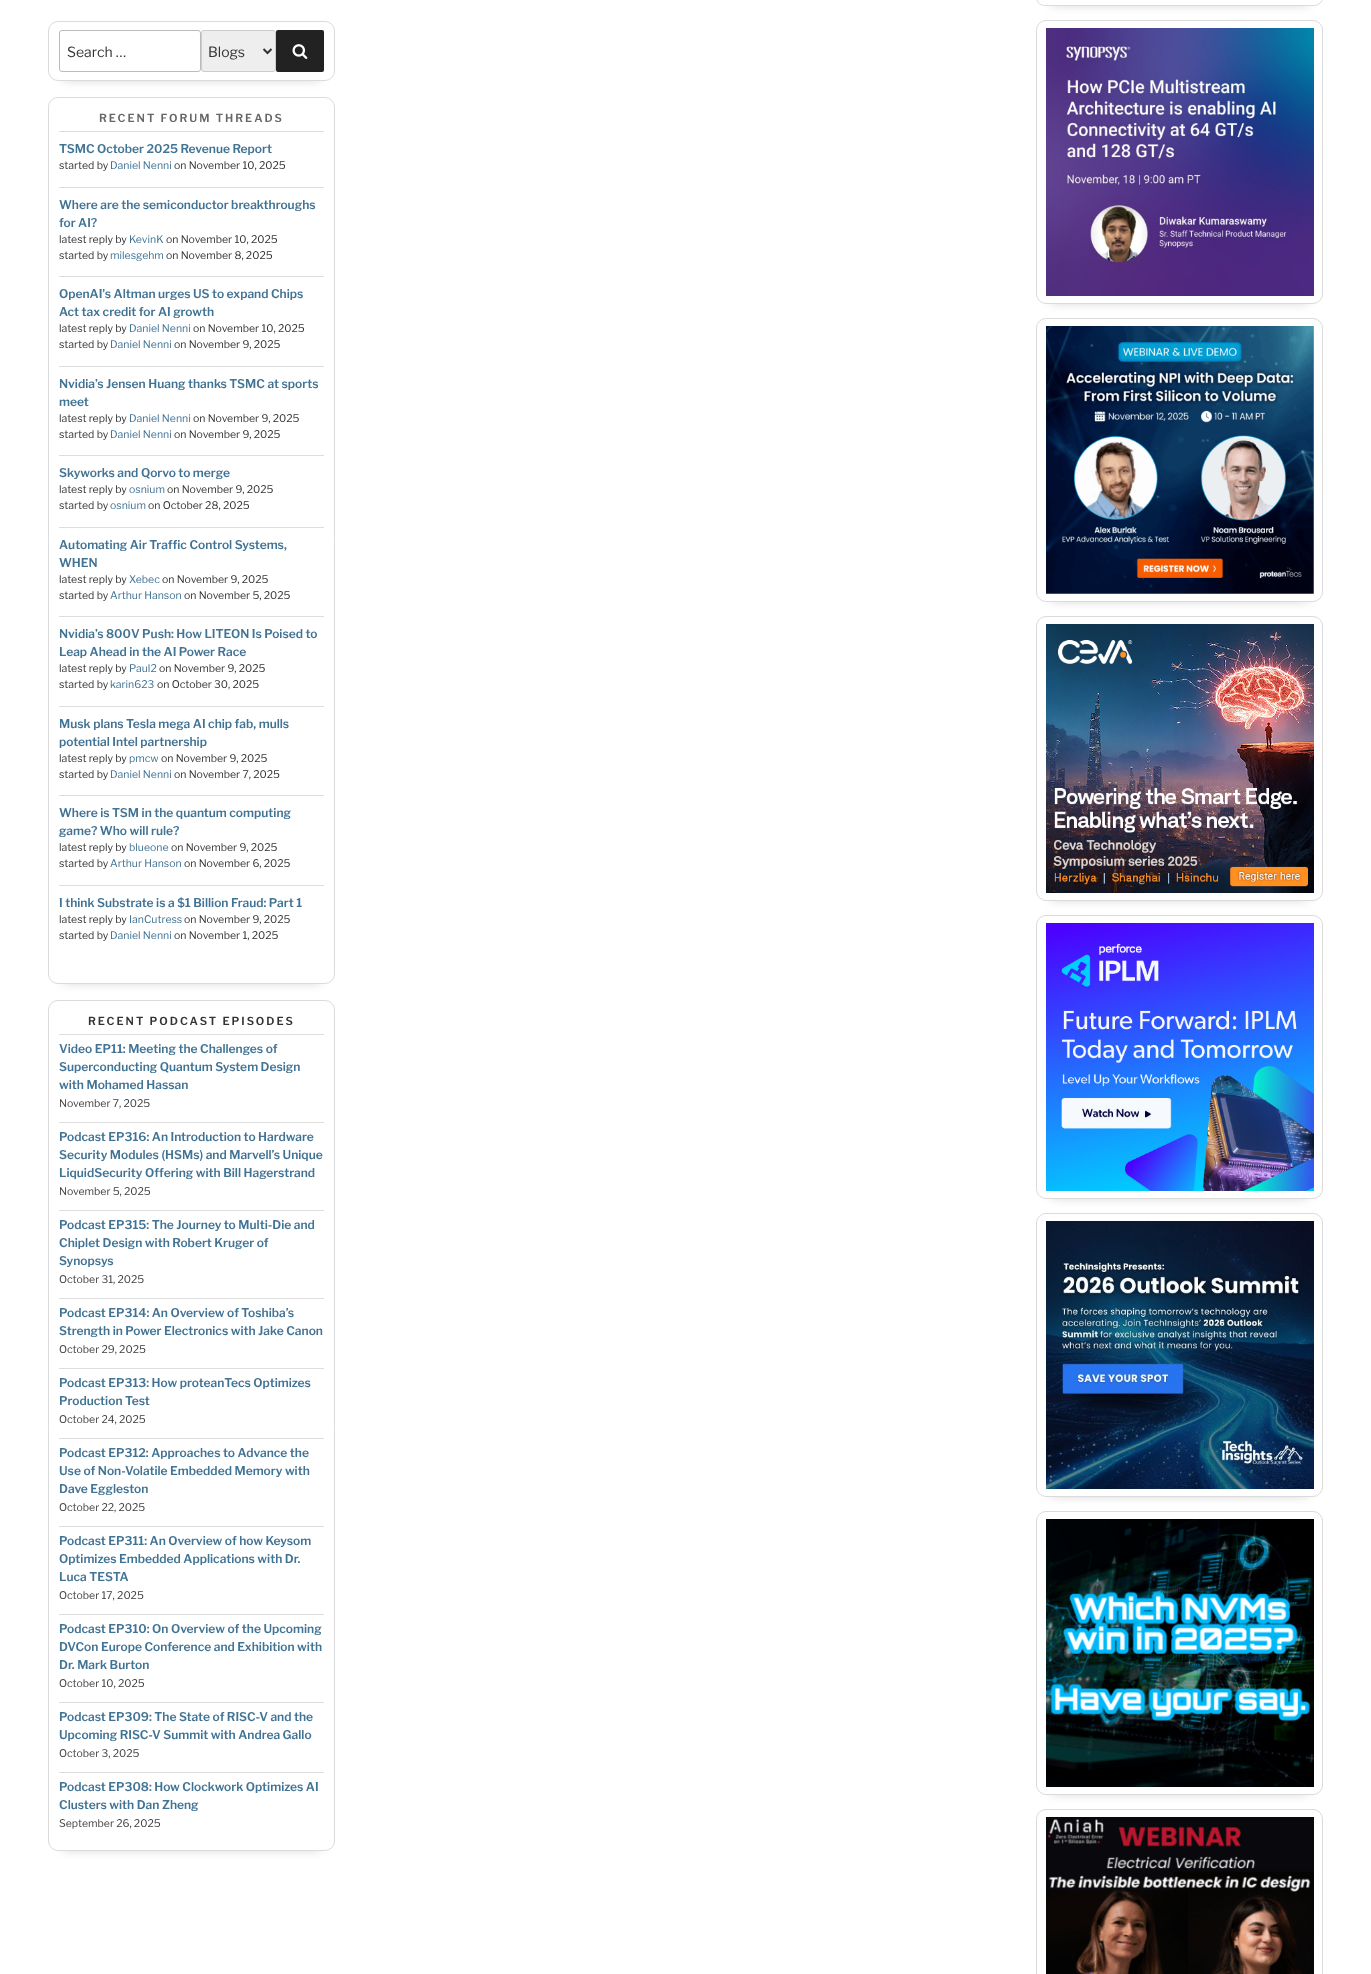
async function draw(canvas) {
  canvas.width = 1371
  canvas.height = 1974
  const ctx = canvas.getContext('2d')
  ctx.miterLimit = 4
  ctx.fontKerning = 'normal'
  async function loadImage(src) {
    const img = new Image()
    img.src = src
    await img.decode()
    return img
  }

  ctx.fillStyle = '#fff'
  ctx.fillRect(0, 0, 1371, 1974)
  ctx.save()
  ctx.beginPath()
  ctx.rect(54, 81, 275, 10)
  ctx.clip()
  ctx.fillStyle = '#dbdbdb'
  ctx.filter = 'blur(5px)'
  ctx.beginPath()
  ctx.rect(63, 51, 257, 30)
  ctx.fill()
  ctx.filter = 'none'
  ctx.restore()
  ctx.beginPath()
  ctx.roundRect(48.5, 21.5, 286, 59, 9.5)
  ctx.strokeStyle = '#dbdbdb'
  ctx.stroke()
  ctx.beginPath()
  ctx.roundRect(59.5, 30.5, 141, 41, 2.5)
  ctx.strokeStyle = '#bbb'
  ctx.stroke()
  ctx.font = '14px Libre Franklin'
  ctx.fillStyle = '#333'
  ctx.fillText('Search …', 67, 57)
  ctx.fillStyle = '#eee'
  ctx.beginPath()
  ctx.roundRect(201.5, 30.5, 74, 41, 2.5)
  ctx.fill()
  ctx.strokeStyle = '#ccc'
  ctx.stroke()
  ctx.beginPath()
  ctx.moveTo(263.5, 49)
  ctx.lineTo(267.5, 53)
  ctx.lineTo(271.5, 49)
  ctx.strokeStyle = '#333'
  ctx.lineWidth = 2
  ctx.stroke()
  ctx.fillStyle = '#333'
  ctx.fillText('Blogs', 208, 57)
  ctx.fillStyle = '#222'
  ctx.beginPath()
  ctx.roundRect(276, 30, 48, 42, 2)
  ctx.fill()
  ctx.drawImage(await loadImage('image0.png'), 292, 44, 16, 15)
  ctx.save()
  ctx.beginPath()
  ctx.rect(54, 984, 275, 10)
  ctx.clip()
  ctx.fillStyle = '#dbdbdb'
  ctx.filter = 'blur(5px)'
  ctx.beginPath()
  ctx.rect(63, 127, 257, 857)
  ctx.fill()
  ctx.filter = 'none'
  ctx.restore()
  ctx.beginPath()
  ctx.roundRect(48.5, 97.5, 286, 886, 9.5)
  ctx.strokeStyle = '#dbdbdb'
  ctx.lineWidth = 1
  ctx.stroke()
  ctx.letterSpacing = '2px'
  ctx.font = '600 11px Libre Franklin'
  ctx.fillStyle = '#666'
  ctx.fillText('RECENT FORUM THREADS', 99, 122)
  ctx.fillStyle = '#ddd'
  ctx.fillRect(59, 131, 265, 1)
  ctx.letterSpacing = '0px'
  ctx.font = '600 12px Libre Franklin'
  ctx.fillStyle = '#417394'
  ctx.fillText('TSMC October 2025 Revenue Report', 59, 153)
  ctx.font = '10.5px Libre Franklin'
  ctx.fillStyle = '#333'
  ctx.fillText('started by', 59, 169)
  ctx.fillStyle = '#417394'
  ctx.fillText('Daniel Nenni', 110, 169)
  ctx.fillStyle = '#333'
  ctx.fillText('on November 10, 2025', 174, 169)
  ctx.fillStyle = '#ddd'
  ctx.fillRect(59, 187, 265, 1)
  ctx.font = '600 12px Libre Franklin'
  ctx.fillStyle = '#417394'
  ctx.fillText('Where are the semiconductor breakthroughs', 59, 209)
  ctx.fillText('for AI?', 59, 227)
  ctx.font = '10.5px Libre Franklin'
  ctx.fillStyle = '#333'
  ctx.fillText('latest reply by', 59, 243)
  ctx.fillStyle = '#417394'
  ctx.fillText('KevinK', 129, 243)
  ctx.fillStyle = '#333'
  ctx.fillText('on November 10, 2025', 166, 243)
  ctx.fillText('started by', 59, 259)
  ctx.fillStyle = '#417394'
  ctx.fillText('milesgehm', 110, 259)
  ctx.fillStyle = '#333'
  ctx.fillText('on November 8, 2025', 166, 259)
  ctx.fillStyle = '#ddd'
  ctx.fillRect(59, 276, 265, 1)
  ctx.font = '600 12px Libre Franklin'
  ctx.fillStyle = '#417394'
  ctx.fillText('OpenAI\'s Altman urges US to expand Chips', 59, 298)
  ctx.fillText('Act tax credit for AI growth', 59, 316)
  ctx.font = '10.5px Libre Franklin'
  ctx.fillStyle = '#333'
  ctx.fillText('latest reply by', 59, 332)
  ctx.fillStyle = '#417394'
  ctx.fillText('Daniel Nenni', 129, 332)
  ctx.fillStyle = '#333'
  ctx.fillText('on November 10, 2025', 193, 332)
  ctx.fillText('started by', 59, 348)
  ctx.fillStyle = '#417394'
  ctx.fillText('Daniel Nenni', 110, 348)
  ctx.fillStyle = '#333'
  ctx.fillText('on November 9, 2025', 174, 348)
  ctx.fillStyle = '#ddd'
  ctx.fillRect(59, 366, 265, 1)
  ctx.font = '600 12px Libre Franklin'
  ctx.fillStyle = '#417394'
  ctx.fillText('Nvidia’s Jensen Huang thanks TSMC at sports', 59, 388)
  ctx.fillText('meet', 59, 406)
  ctx.font = '10.5px Libre Franklin'
  ctx.fillStyle = '#333'
  ctx.fillText('latest reply by', 59, 422)
  ctx.fillStyle = '#417394'
  ctx.fillText('Daniel Nenni', 129, 422)
  ctx.fillStyle = '#333'
  ctx.fillText('on November 9, 2025', 193, 422)
  ctx.fillText('started by', 59, 438)
  ctx.fillStyle = '#417394'
  ctx.fillText('Daniel Nenni', 110, 438)
  ctx.fillStyle = '#333'
  ctx.fillText('on November 9, 2025', 174, 438)
  ctx.fillStyle = '#ddd'
  ctx.fillRect(59, 455, 265, 1)
  ctx.font = '600 12px Libre Franklin'
  ctx.fillStyle = '#417394'
  ctx.fillText('Skyworks and Qorvo to merge', 59, 477)
  ctx.font = '10.5px Libre Franklin'
  ctx.fillStyle = '#333'
  ctx.fillText('latest reply by', 59, 493)
  ctx.fillStyle = '#417394'
  ctx.fillText('osnium', 129, 493)
  ctx.fillStyle = '#333'
  ctx.fillText('on November 9, 2025', 167, 493)
  ctx.fillText('started by', 59, 509)
  ctx.fillStyle = '#417394'
  ctx.fillText('osnium', 110, 509)
  ctx.fillStyle = '#333'
  ctx.fillText('on October 28, 2025', 148, 509)
  ctx.fillStyle = '#ddd'
  ctx.fillRect(59, 527, 265, 1)
  ctx.font = '600 12px Libre Franklin'
  ctx.fillStyle = '#417394'
  ctx.fillText('Automating Air Traffic Control Systems,', 59, 549)
  ctx.fillText('WHEN', 59, 567)
  ctx.font = '10.5px Libre Franklin'
  ctx.fillStyle = '#333'
  ctx.fillText('latest reply by', 59, 583)
  ctx.fillStyle = '#417394'
  ctx.fillText('Xebec', 129, 583)
  ctx.fillStyle = '#333'
  ctx.fillText('on November 9, 2025', 162, 583)
  ctx.fillText('started by', 59, 599)
  ctx.fillStyle = '#417394'
  ctx.fillText('Arthur Hanson', 110, 599)
  ctx.fillStyle = '#333'
  ctx.fillText('on November 5, 2025', 184, 599)
  ctx.fillStyle = '#ddd'
  ctx.fillRect(59, 616, 265, 1)
  ctx.font = '600 12px Libre Franklin'
  ctx.fillStyle = '#417394'
  ctx.fillText('Nvidia’s 800V Push: How LITEON Is Poised to', 59, 638)
  ctx.fillText('Leap Ahead in the AI Power Race', 59, 656)
  ctx.font = '10.5px Libre Franklin'
  ctx.fillStyle = '#333'
  ctx.fillText('latest reply by', 59, 672)
  ctx.fillStyle = '#417394'
  ctx.fillText('Paul2', 129, 672)
  ctx.fillStyle = '#333'
  ctx.fillText('on November 9, 2025', 159, 672)
  ctx.fillText('started by', 59, 688)
  ctx.fillStyle = '#417394'
  ctx.fillText('karin623', 110, 688)
  ctx.fillStyle = '#333'
  ctx.fillText('on October 30, 2025', 157, 688)
  ctx.fillStyle = '#ddd'
  ctx.fillRect(59, 706, 265, 1)
  ctx.font = '600 12px Libre Franklin'
  ctx.fillStyle = '#417394'
  ctx.fillText('Musk plans Tesla mega AI chip fab, mulls', 59, 728)
  ctx.fillText('potential Intel partnership', 59, 746)
  ctx.font = '10.5px Libre Franklin'
  ctx.fillStyle = '#333'
  ctx.fillText('latest reply by', 59, 762)
  ctx.fillStyle = '#417394'
  ctx.fillText('pmcw', 129, 762)
  ctx.fillStyle = '#333'
  ctx.fillText('on November 9, 2025', 161, 762)
  ctx.fillText('started by', 59, 778)
  ctx.fillStyle = '#417394'
  ctx.fillText('Daniel Nenni', 110, 778)
  ctx.fillStyle = '#333'
  ctx.fillText('on November 7, 2025', 174, 778)
  ctx.fillStyle = '#ddd'
  ctx.fillRect(59, 795, 265, 1)
  ctx.font = '600 12px Libre Franklin'
  ctx.fillStyle = '#417394'
  ctx.fillText('Where is TSM in the quantum computing', 59, 817)
  ctx.fillText('game? Who will rule?', 59, 835)
  ctx.font = '10.5px Libre Franklin'
  ctx.fillStyle = '#333'
  ctx.fillText('latest reply by', 59, 851)
  ctx.fillStyle = '#417394'
  ctx.fillText('blueone', 129, 851)
  ctx.fillStyle = '#333'
  ctx.fillText('on November 9, 2025', 171, 851)
  ctx.fillText('started by', 59, 867)
  ctx.fillStyle = '#417394'
  ctx.fillText('Arthur Hanson', 110, 867)
  ctx.fillStyle = '#333'
  ctx.fillText('on November 6, 2025', 184, 867)
  ctx.fillStyle = '#ddd'
  ctx.fillRect(59, 885, 265, 1)
  ctx.font = '600 12px Libre Franklin'
  ctx.fillStyle = '#417394'
  ctx.fillText('I think Substrate is a $1 Billion Fraud: Part 1', 59, 907)
  ctx.font = '10.5px Libre Franklin'
  ctx.fillStyle = '#333'
  ctx.fillText('latest reply by', 59, 923)
  ctx.fillStyle = '#417394'
  ctx.fillText('IanCutress', 129, 923)
  ctx.fillStyle = '#333'
  ctx.fillText('on November 9, 2025', 184, 923)
  ctx.fillText('started by', 59, 939)
  ctx.fillStyle = '#417394'
  ctx.fillText('Daniel Nenni', 110, 939)
  ctx.fillStyle = '#333'
  ctx.fillText('on November 1, 2025', 174, 939)
  ctx.save()
  ctx.beginPath()
  ctx.rect(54, 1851, 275, 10)
  ctx.clip()
  ctx.fillStyle = '#dbdbdb'
  ctx.filter = 'blur(5px)'
  ctx.beginPath()
  ctx.rect(63, 1030, 257, 821)
  ctx.fill()
  ctx.filter = 'none'
  ctx.restore()
  ctx.beginPath()
  ctx.roundRect(48.5, 1000.5, 286, 850, 9.5)
  ctx.stroke()
  ctx.letterSpacing = '2px'
  ctx.font = '600 11px Libre Franklin'
  ctx.fillText('RECENT PODCAST EPISODES', 88, 1025)
  ctx.fillStyle = '#ddd'
  ctx.fillRect(59, 1034, 265, 1)
  ctx.letterSpacing = '0px'
  ctx.font = '600 12px Libre Franklin'
  ctx.fillStyle = '#417394'
  ctx.fillText('Video EP11: Meeting the Challenges of', 59, 1053)
  ctx.fillText('Superconducting Quantum System Design', 59, 1071)
  ctx.fillText('with Mohamed Hassan', 59, 1089)
  ctx.font = '10.5px Libre Franklin'
  ctx.fillStyle = '#414141'
  ctx.fillText('November 7, 2025', 59, 1107)
  ctx.fillStyle = '#ddd'
  ctx.fillRect(59, 1122, 265, 1)
  ctx.font = '600 12px Libre Franklin'
  ctx.fillStyle = '#417394'
  ctx.fillText('Podcast EP316: An Introduction to Hardware', 59, 1141)
  ctx.fillText('Security Modules (HSMs) and Marvell’s Unique', 59, 1159)
  ctx.fillText('LiquidSecurity Offering with Bill Hagerstrand', 59, 1177)
  ctx.font = '10.5px Libre Franklin'
  ctx.fillStyle = '#414141'
  ctx.fillText('November 5, 2025', 59, 1195)
  ctx.fillStyle = '#ddd'
  ctx.fillRect(59, 1210, 265, 1)
  ctx.font = '600 12px Libre Franklin'
  ctx.fillStyle = '#417394'
  ctx.fillText('Podcast EP315: The Journey to Multi-Die and', 59, 1229)
  ctx.fillText('Chiplet Design with Robert Kruger of', 59, 1247)
  ctx.fillText('Synopsys', 59, 1265)
  ctx.font = '10.5px Libre Franklin'
  ctx.fillStyle = '#414141'
  ctx.fillText('October 31, 2025', 59, 1283)
  ctx.fillStyle = '#ddd'
  ctx.fillRect(59, 1298, 265, 1)
  ctx.font = '600 12px Libre Franklin'
  ctx.fillStyle = '#417394'
  ctx.fillText('Podcast EP314: An Overview of Toshiba’s', 59, 1317)
  ctx.fillText('Strength in Power Electronics with Jake Canon', 59, 1335)
  ctx.font = '10.5px Libre Franklin'
  ctx.fillStyle = '#414141'
  ctx.fillText('October 29, 2025', 59, 1353)
  ctx.fillStyle = '#ddd'
  ctx.fillRect(59, 1368, 265, 1)
  ctx.font = '600 12px Libre Franklin'
  ctx.fillStyle = '#417394'
  ctx.fillText('Podcast EP313: How proteanTecs Optimizes', 59, 1387)
  ctx.fillText('Production Test', 59, 1405)
  ctx.font = '10.5px Libre Franklin'
  ctx.fillStyle = '#414141'
  ctx.fillText('October 24, 2025', 59, 1423)
  ctx.fillStyle = '#ddd'
  ctx.fillRect(59, 1438, 265, 1)
  ctx.font = '600 12px Libre Franklin'
  ctx.fillStyle = '#417394'
  ctx.fillText('Podcast EP312: Approaches to Advance the', 59, 1457)
  ctx.fillText('Use of Non-Volatile Embedded Memory with', 59, 1475)
  ctx.fillText('Dave Eggleston', 59, 1493)
  ctx.font = '10.5px Libre Franklin'
  ctx.fillStyle = '#414141'
  ctx.fillText('October 22, 2025', 59, 1511)
  ctx.fillStyle = '#ddd'
  ctx.fillRect(59, 1526, 265, 1)
  ctx.font = '600 12px Libre Franklin'
  ctx.fillStyle = '#417394'
  ctx.fillText('Podcast EP311: An Overview of how Keysom', 59, 1545)
  ctx.fillText('Optimizes Embedded Applications with Dr.', 59, 1563)
  ctx.fillText('Luca TESTA', 59, 1581)
  ctx.font = '10.5px Libre Franklin'
  ctx.fillStyle = '#414141'
  ctx.fillText('October 17, 2025', 59, 1599)
  ctx.fillStyle = '#ddd'
  ctx.fillRect(59, 1614, 265, 1)
  ctx.font = '600 12px Libre Franklin'
  ctx.fillStyle = '#417394'
  ctx.fillText('Podcast EP310: On Overview of the Upcoming', 59, 1633)
  ctx.fillText('DVCon Europe Conference and Exhibition with', 59, 1651)
  ctx.fillText('Dr. Mark Burton', 59, 1669)
  ctx.font = '10.5px Libre Franklin'
  ctx.fillStyle = '#414141'
  ctx.fillText('October 10, 2025', 59, 1687)
  ctx.fillStyle = '#ddd'
  ctx.fillRect(59, 1702, 265, 1)
  ctx.font = '600 12px Libre Franklin'
  ctx.fillStyle = '#417394'
  ctx.fillText('Podcast EP309: The State of RISC-V and the', 59, 1721)
  ctx.fillText('Upcoming RISC-V Summit with Andrea Gallo', 59, 1739)
  ctx.font = '10.5px Libre Franklin'
  ctx.fillStyle = '#414141'
  ctx.fillText('October 3, 2025', 59, 1757)
  ctx.fillStyle = '#ddd'
  ctx.fillRect(59, 1772, 265, 1)
  ctx.font = '600 12px Libre Franklin'
  ctx.fillStyle = '#417394'
  ctx.fillText('Podcast EP308: How Clockwork Optimizes AI', 59, 1791)
  ctx.fillText('Clusters with Dan Zheng', 59, 1809)
  ctx.font = '10.5px Libre Franklin'
  ctx.fillStyle = '#414141'
  ctx.fillText('September 26, 2025', 59, 1827)
  ctx.save()
  ctx.beginPath()
  ctx.rect(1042, 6, 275, 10)
  ctx.clip()
  ctx.fillStyle = '#dbdbdb'
  ctx.filter = 'blur(5px)'
  ctx.beginPath()
  ctx.rect(1051, -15, 257, 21)
  ctx.fill()
  ctx.filter = 'none'
  ctx.restore()
  ctx.beginPath()
  ctx.roundRect(1036.5, -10.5, 286, 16, 9.5)
  ctx.stroke()
  ctx.save()
  ctx.beginPath()
  ctx.rect(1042, 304, 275, 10)
  ctx.clip()
  ctx.fillStyle = '#dbdbdb'
  ctx.filter = 'blur(5px)'
  ctx.beginPath()
  ctx.rect(1051, 50, 257, 254)
  ctx.fill()
  ctx.filter = 'none'
  ctx.restore()
  ctx.beginPath()
  ctx.roundRect(1036.5, 20.5, 286, 283, 9.5)
  ctx.stroke()
  ctx.drawImage(await loadImage('image1.png'), 1046, 28, 268, 268)
  ctx.save()
  ctx.beginPath()
  ctx.rect(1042, 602, 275, 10)
  ctx.clip()
  ctx.fillStyle = '#dbdbdb'
  ctx.filter = 'blur(5px)'
  ctx.beginPath()
  ctx.rect(1051, 348, 257, 254)
  ctx.fill()
  ctx.filter = 'none'
  ctx.restore()
  ctx.beginPath()
  ctx.roundRect(1036.5, 318.5, 286, 283, 9.5)
  ctx.stroke()
  ctx.drawImage(await loadImage('image2.png'), 1046, 326, 268, 268)
  ctx.save()
  ctx.beginPath()
  ctx.rect(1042, 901, 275, 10)
  ctx.clip()
  ctx.fillStyle = '#dbdbdb'
  ctx.filter = 'blur(5px)'
  ctx.beginPath()
  ctx.rect(1051, 646, 257, 255)
  ctx.fill()
  ctx.filter = 'none'
  ctx.restore()
  ctx.beginPath()
  ctx.roundRect(1036.5, 616.5, 286, 284, 9.5)
  ctx.stroke()
  ctx.drawImage(await loadImage('image3.png'), 1046, 624, 268, 269)
  ctx.save()
  ctx.beginPath()
  ctx.rect(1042, 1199, 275, 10)
  ctx.clip()
  ctx.fillStyle = '#dbdbdb'
  ctx.filter = 'blur(5px)'
  ctx.beginPath()
  ctx.rect(1051, 945, 257, 254)
  ctx.fill()
  ctx.filter = 'none'
  ctx.restore()
  ctx.beginPath()
  ctx.roundRect(1036.5, 915.5, 286, 283, 9.5)
  ctx.stroke()
  ctx.drawImage(await loadImage('image4.png'), 1046, 923, 268, 268)
  ctx.save()
  ctx.beginPath()
  ctx.rect(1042, 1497, 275, 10)
  ctx.clip()
  ctx.fillStyle = '#dbdbdb'
  ctx.filter = 'blur(5px)'
  ctx.beginPath()
  ctx.rect(1051, 1243, 257, 254)
  ctx.fill()
  ctx.filter = 'none'
  ctx.restore()
  ctx.beginPath()
  ctx.roundRect(1036.5, 1213.5, 286, 283, 9.5)
  ctx.stroke()
  ctx.drawImage(await loadImage('image5.png'), 1046, 1221, 268, 268)
  ctx.save()
  ctx.beginPath()
  ctx.rect(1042, 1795, 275, 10)
  ctx.clip()
  ctx.fillStyle = '#dbdbdb'
  ctx.filter = 'blur(5px)'
  ctx.beginPath()
  ctx.rect(1051, 1541, 257, 254)
  ctx.fill()
  ctx.filter = 'none'
  ctx.restore()
  ctx.beginPath()
  ctx.roundRect(1036.5, 1511.5, 286, 283, 9.5)
  ctx.stroke()
  ctx.drawImage(await loadImage('image6.png'), 1046, 1519, 268, 268)
  ctx.beginPath()
  ctx.roundRect(1036.5, 1809.5, 286, 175, 9.5)
  ctx.stroke()
  ctx.drawImage(await loadImage('image7.png'), 1046, 1817, 268, 157)
}

draw(document.querySelector('canvas'))
